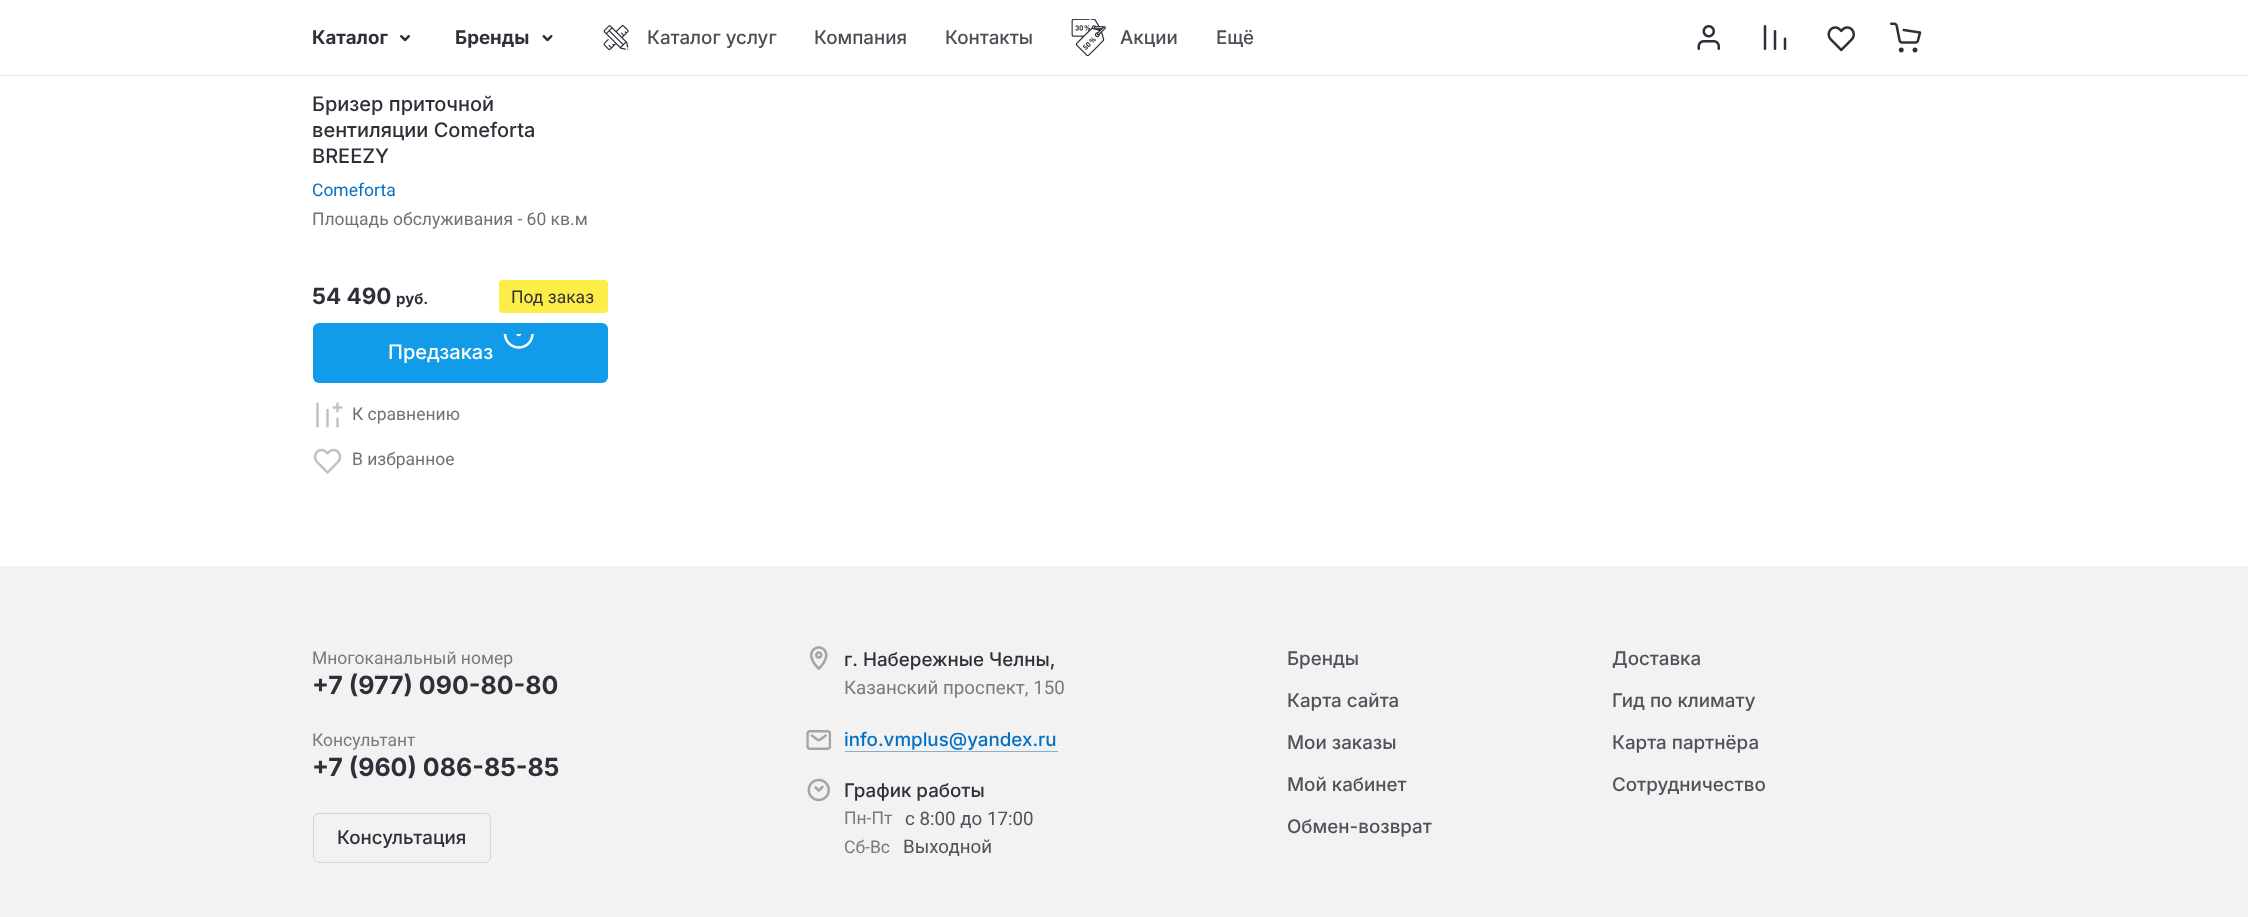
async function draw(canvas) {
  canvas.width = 2248
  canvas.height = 917
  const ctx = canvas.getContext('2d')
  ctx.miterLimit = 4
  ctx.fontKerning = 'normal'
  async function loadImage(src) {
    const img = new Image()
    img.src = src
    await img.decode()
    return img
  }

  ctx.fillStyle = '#fff'
  ctx.fillRect(0, 0, 2248, 917)
  ctx.fillStyle = '#ebebeb'
  ctx.beginPath()
  ctx.moveTo(0, 75)
  ctx.lineTo(0, 76)
  ctx.lineTo(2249, 76)
  ctx.lineTo(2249, 1)
  ctx.lineTo(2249, 75)
  ctx.closePath()
  ctx.fill()
  ctx.font = 'bold 18.75px Inter'
  ctx.fillStyle = '#2e2f38'
  ctx.fillText('Каталог', 312, 44)
  ctx.drawImage(await loadImage('image0.png'), 400, 35, 10, 7)
  ctx.fillText('Бренды', 455, 44)
  ctx.drawImage(await loadImage('image1.png'), 542, 35, 11, 7)
  ctx.drawImage(await loadImage('image2.png'), 603, 25, 26, 26)
  ctx.font = '500 18.75px Inter'
  ctx.fillStyle = '#4b4e54'
  ctx.fillText('Каталог услуг', 647, 44)
  ctx.fillText('Компания', 814, 44)
  ctx.fillText('Контакты', 945, 44)
  ctx.drawImage(await loadImage('image3.png'), 1071, 19, 35, 37)
  ctx.fillText('Акции', 1120, 44)
  ctx.fillText('Ещё', 1216, 44)
  ctx.drawImage(await loadImage('image4.png'), 1697, 25, 23, 25)
  ctx.drawImage(await loadImage('image5.png'), 1763, 25, 24, 25)
  ctx.drawImage(await loadImage('image6.png'), 1827, 26, 28, 26)
  ctx.drawImage(await loadImage('image7.png'), 1890, 22, 32, 31)
  ctx.font = '500 20px Inter'
  ctx.fillStyle = '#2e2f38'
  ctx.fillText('Бризер приточной', 312, 111)
  ctx.fillText('вентиляции Comeforta', 312, 137)
  ctx.fillText('BREEZY', 312, 163)
  ctx.font = '17.5px Roboto'
  ctx.fillStyle = '#0470c4'
  ctx.fillText('Comeforta', 312, 196)
  ctx.fillStyle = '#6f7176'
  ctx.fillText('Площадь обслуживания - 60 кв.м', 312, 225)
  ctx.font = 'bold 22.5px Inter'
  ctx.fillStyle = '#2e2f38'
  ctx.fillText('54 490', 312, 304)
  ctx.font = 'bold 15px Inter'
  ctx.fillText('руб.', 396, 304)
  ctx.fillStyle = '#fced47'
  ctx.beginPath()
  ctx.roundRect(499, 280, 109, 33, 4)
  ctx.fill()
  ctx.font = '17.5px Roboto'
  ctx.fillStyle = '#2e2f38'
  ctx.fillText('Под заказ', 511, 303)
  ctx.fillStyle = '#129be8'
  ctx.beginPath()
  ctx.roundRect(313, 323, 295, 60, 6)
  ctx.fill()
  ctx.drawImage(await loadImage('image8.png'), 503, 334, 31, 15)
  ctx.font = '500 20px Inter'
  ctx.fillStyle = '#fff'
  ctx.fillText('Предзаказ', 388, 359)
  ctx.drawImage(await loadImage('image9.png'), 316, 402, 27, 26)
  ctx.font = '17.5px Roboto'
  ctx.fillStyle = '#6f7176'
  ctx.fillText('К сравнению', 352, 420)
  ctx.drawImage(await loadImage('image10.png'), 313, 448, 29, 26)
  ctx.fillText('В избранное', 352, 465)
  ctx.fillStyle = '#f2f2f2'
  ctx.fillRect(0, 566, 2248, 351)
  ctx.fillStyle = '#777a80'
  ctx.fillText('Многоканальный номер', 312, 664)
  ctx.font = 'bold 25px Inter'
  ctx.fillStyle = '#2e2f38'
  ctx.fillText('+7 (977) 090-80-80', 312, 694)
  ctx.font = '17.5px Roboto'
  ctx.fillStyle = '#777a80'
  ctx.fillText('Консультант', 312, 746)
  ctx.font = 'bold 25px Inter'
  ctx.fillStyle = '#2e2f38'
  ctx.fillText('+7 (960) 086-85-85', 312, 776)
  ctx.beginPath()
  ctx.roundRect(313.5, 813.5, 177, 49, 5.5)
  ctx.strokeStyle = '#d5d5d5'
  ctx.stroke()
  ctx.font = '500 18.75px Inter'
  ctx.fillText('Консультация', 337, 844)
  ctx.drawImage(await loadImage('image11.png'), 810, 646, 18, 24)
  ctx.fillText('г. Набережные Челны,', 844, 666)
  ctx.font = '18.75px Roboto'
  ctx.fillStyle = '#777a80'
  ctx.fillText('Казанский проспект, 150', 844, 694)
  ctx.drawImage(await loadImage('image12.png'), 806, 730, 26, 20)
  ctx.font = '500 18.75px Inter'
  ctx.fillStyle = '#0470c4'
  ctx.fillText('info.vmplus@yandex.ru', 844, 746)
  ctx.fillStyle = '#7bb1db'
  ctx.fillRect(845, 751, 213, 1)
  ctx.drawImage(await loadImage('image13.png'), 807, 778, 23, 24)
  ctx.fillStyle = '#2e2f38'
  ctx.fillText('График работы', 844, 797)
  ctx.font = '17.5px Roboto'
  ctx.fillStyle = '#777a80'
  ctx.fillText('Пн-Пт', 844, 824)
  ctx.font = '18.75px Roboto'
  ctx.fillStyle = '#4e525a'
  ctx.fillText('с 8:00 до 17:00', 905, 825)
  ctx.font = '17.5px Roboto'
  ctx.fillStyle = '#777a80'
  ctx.fillText('Сб-Вс', 844, 853)
  ctx.font = '18.75px Roboto'
  ctx.fillStyle = '#4e525a'
  ctx.fillText('Выходной', 903, 853)
  ctx.font = '500 18.75px Inter'
  ctx.fillText('Бренды', 1287, 665)
  ctx.fillText('Карта сайта', 1287, 707)
  ctx.fillText('Мои заказы', 1287, 749)
  ctx.fillText('Мой кабинет', 1287, 791)
  ctx.fillText('Обмен-возврат', 1287, 833)
  ctx.fillText('Доставка', 1612, 665)
  ctx.fillText('Гид по климату', 1612, 707)
  ctx.fillText('Карта партнёра', 1612, 749)
  ctx.fillText('Сотрудничество', 1612, 791)
}

draw(document.querySelector('canvas'))
